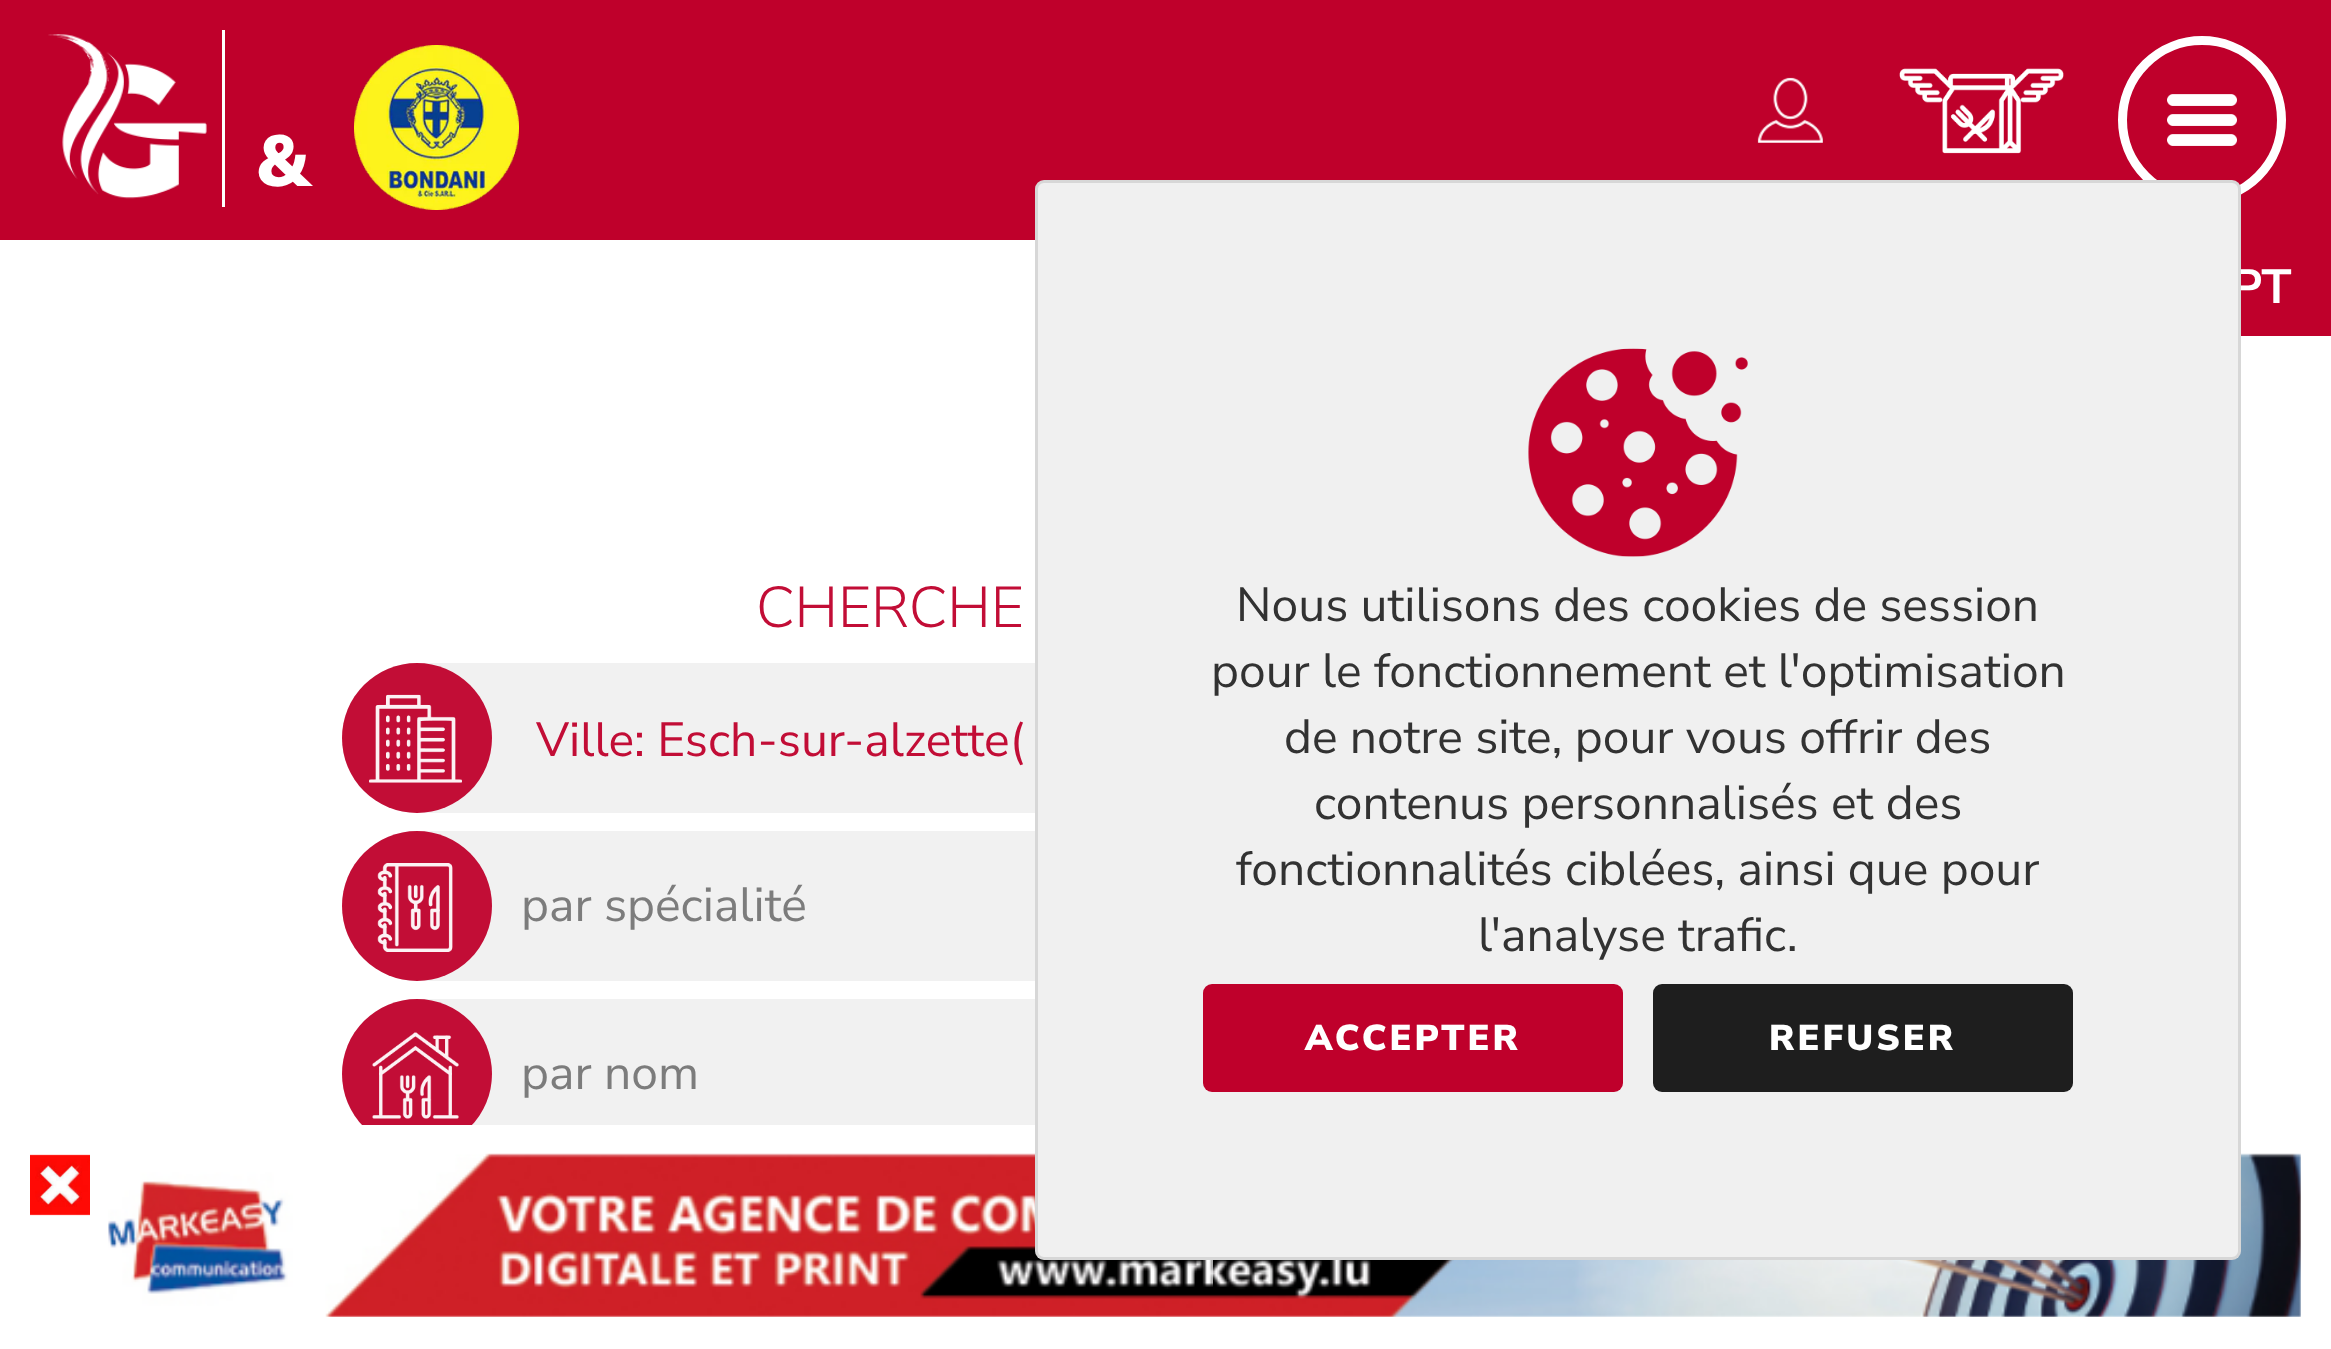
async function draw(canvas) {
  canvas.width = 2331
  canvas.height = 1349
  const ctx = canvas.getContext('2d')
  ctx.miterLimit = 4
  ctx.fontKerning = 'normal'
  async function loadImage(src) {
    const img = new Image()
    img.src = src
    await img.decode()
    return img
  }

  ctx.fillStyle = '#fff'
  ctx.fillRect(0, 0, 2331, 1349)
  ctx.fillStyle = '#bf002b'
  ctx.fillRect(0, 0, 2331, 240)
  ctx.drawImage(await loadImage('image0.png'), 48, 34, 159, 165)
  ctx.fillStyle = '#fff'
  ctx.fillRect(222, 30, 3, 177)
  ctx.drawImage(await loadImage('image1.png'), 1757, 77, 66, 66)
  ctx.drawImage(await loadImage('image2.png'), 1899, 68, 165, 86)
  ctx.beginPath()
  ctx.arc(2202, 120, 79.5, 0, 2 * Math.PI)
  ctx.strokeStyle = '#fff'
  ctx.lineWidth = 9
  ctx.stroke()
  ctx.drawImage(await loadImage('image3.png'), 2167, 94, 70, 52)
  ctx.font = '900 72px Nunito Sans'
  ctx.fillText('&', 255, 186)
  ctx.drawImage(await loadImage('image4.png'), 354, 45, 165, 165)
  ctx.fillStyle = '#bf002b'
  ctx.fillRect(2241, 240, 90, 96)
  ctx.font = 'bold 48px Nunito Sans'
  ctx.fillStyle = '#fff'
  ctx.fillText('PT', 2231, 303)
  ctx.font = '300 57.5px Nunito Sans'
  ctx.fillStyle = '#c20d36'
  ctx.fillText('CHERCHE', 756, 627)
  ctx.fillStyle = '#f1f1f1'
  ctx.beginPath()
  ctx.roundRect(342, 663, 1650, 150, 75)
  ctx.fill()
  ctx.fillStyle = '#c20d36'
  ctx.beginPath()
  ctx.arc(417, 738, 75, 0, 2 * Math.PI)
  ctx.fill()
  ctx.drawImage(await loadImage('image5.png'), 369, 694, 93, 89)
  ctx.font = '48px Nunito Sans'
  ctx.fillText('Ville: Esch-sur-alzette(', 536, 756)
  ctx.fillStyle = '#f1f1f1'
  ctx.beginPath()
  ctx.roundRect(342, 831, 1650, 150, 75)
  ctx.fill()
  ctx.fillStyle = '#c20d36'
  ctx.beginPath()
  ctx.arc(417, 906, 75, 0, 2 * Math.PI)
  ctx.fill()
  ctx.drawImage(await loadImage('image6.png'), 377, 863, 76, 89)
  ctx.fillStyle = '#7c7c7c'
  ctx.fillText('par spécialité', 521, 921)
  ctx.fillStyle = '#f1f1f1'
  ctx.beginPath()
  ctx.roundRect(342, 999, 1650, 150, 75)
  ctx.fill()
  ctx.fillStyle = '#c20d36'
  ctx.beginPath()
  ctx.arc(417, 1074, 75, 0, 2 * Math.PI)
  ctx.fill()
  ctx.drawImage(await loadImage('image7.png'), 372, 1032, 87, 87)
  ctx.fillStyle = '#7c7c7c'
  ctx.fillText('par nom', 521, 1089)
  ctx.fillStyle = '#fff'
  ctx.fillRect(362, 1125, 1610, 24)
  ctx.drawImage(await loadImage('image10.png'), 108, 1153, 2193, 164)
  ctx.fillStyle = '#f0f0f0'
  ctx.beginPath()
  ctx.roundRect(1035, 180, 1206, 1080, 9)
  ctx.fill()
  ctx.beginPath()
  ctx.roundRect(1036.5, 181.5, 1203, 1077, 7.5)
  ctx.strokeStyle = '#0000001a'
  ctx.lineWidth = 3
  ctx.stroke()
  ctx.drawImage(await loadImage('image8.png'), 1528, 348, 220, 209)
  ctx.fillStyle = '#323232'
  ctx.fillText('Nous utilisons des cookies de session', 1236, 621)
  ctx.fillText('pour le fonctionnement et l\'optimisation', 1211, 687)
  ctx.fillText('de notre site, pour vous offrir des', 1284, 753)
  ctx.fillText('contenus personnalisés et des', 1314, 819)
  ctx.fillText('fonctionnalités ciblées, ainsi que pour', 1236, 885)
  ctx.fillText('l\'analyse trafic.', 1478, 951)
  ctx.fillStyle = '#bf002b'
  ctx.beginPath()
  ctx.roundRect(1203, 984, 420, 108, 9)
  ctx.fill()
  ctx.letterSpacing = '3px'
  ctx.font = '900 36px Nunito Sans'
  ctx.fillStyle = '#fff'
  ctx.fillText('ACCEPTER', 1305, 1050)
  ctx.fillStyle = '#1e1e1e'
  ctx.beginPath()
  ctx.roundRect(1653, 984, 420, 108, 9)
  ctx.fill()
  ctx.fillStyle = '#fff'
  ctx.fillText('REFUSER', 1769, 1050)
  ctx.drawImage(await loadImage('image9.png'), 30, 1154, 60, 62)
}

draw(document.querySelector('canvas'))
